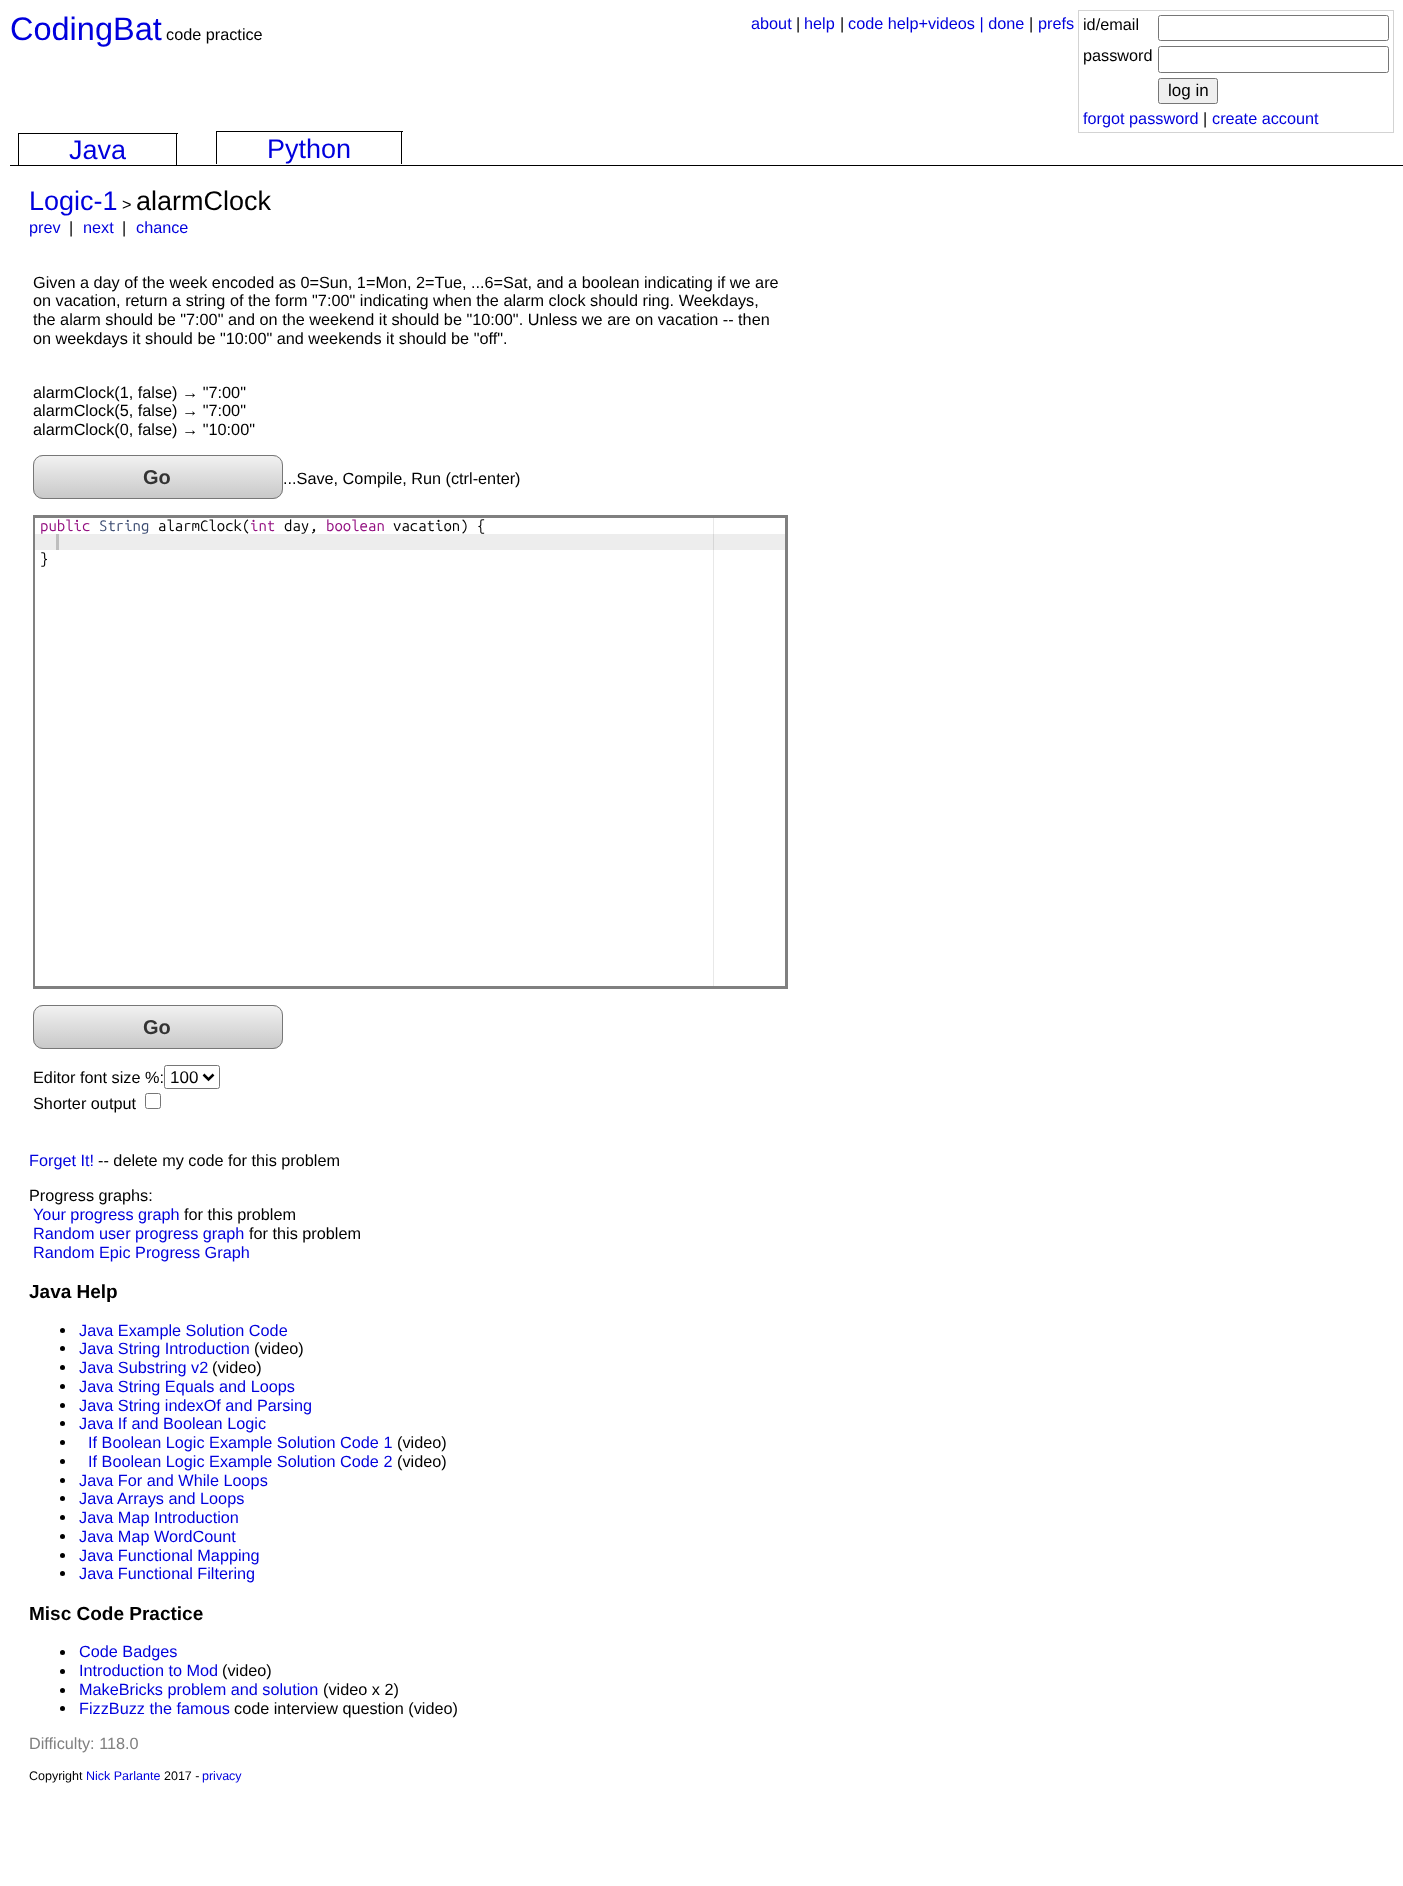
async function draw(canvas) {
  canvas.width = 1403
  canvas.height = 1886
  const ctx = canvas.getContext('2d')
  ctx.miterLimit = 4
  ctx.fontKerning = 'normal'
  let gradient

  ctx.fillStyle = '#fff'
  ctx.fillRect(0, 0, 1403, 1886)
  ctx.font = '32.5px Liberation Sans'
  ctx.fillStyle = '#00d'
  ctx.fillText('CodingBat', 10, 40)
  ctx.font = '16.25px Liberation Sans'
  ctx.fillStyle = '#000'
  ctx.fillText('code practice', 166, 40)
  ctx.fillStyle = '#00d'
  ctx.fillText('about', 751, 29)
  ctx.fillStyle = '#000'
  ctx.fillText('|', 796, 29)
  ctx.fillStyle = '#00d'
  ctx.fillText('help', 804, 29)
  ctx.fillStyle = '#000'
  ctx.fillText('|', 840, 29)
  ctx.fillStyle = '#00d'
  ctx.fillText('code help+videos | done', 848, 29)
  ctx.fillStyle = '#000'
  ctx.fillText('|', 1029, 29)
  ctx.fillStyle = '#00d'
  ctx.fillText('prefs', 1038, 29)
  ctx.strokeStyle = '#d3d3d3'
  ctx.strokeRect(1078.5, 10.5, 315, 122)
  ctx.fillStyle = '#000'
  ctx.fillText('id/email', 1083, 30)
  ctx.beginPath()
  ctx.roundRect(1158.5, 15.5, 230, 25, 2)
  ctx.strokeStyle = '#767676'
  ctx.stroke()
  ctx.fillText('password', 1083, 61)
  ctx.beginPath()
  ctx.roundRect(1158.5, 46.5, 230, 26, 2)
  ctx.stroke()
  ctx.fillStyle = '#efefef'
  ctx.beginPath()
  ctx.roundRect(1158.5, 78.5, 59, 25, 2)
  ctx.fill()
  ctx.stroke()
  ctx.font = '17px Liberation Sans'
  ctx.fillStyle = '#000'
  ctx.fillText('log in', 1168, 96)
  ctx.font = '16.25px Liberation Sans'
  ctx.fillStyle = '#00d'
  ctx.fillText('forgot password', 1083, 124)
  ctx.fillStyle = '#000'
  ctx.fillText('|', 1203, 124)
  ctx.fillStyle = '#00d'
  ctx.fillText('create account', 1212, 124)
  ctx.font = '27px Liberation Sans'
  ctx.fillText('Java', 69, 159)
  ctx.fillStyle = '#000'
  ctx.fillRect(18, 133, 160, 1)
  ctx.fillRect(176, 133, 1, 32)
  ctx.fillRect(18, 133, 1, 32)
  ctx.fillStyle = '#00d'
  ctx.fillText('Python', 267, 158)
  ctx.fillStyle = '#000'
  ctx.fillRect(216, 131, 187, 1)
  ctx.fillRect(401, 131, 1, 33)
  ctx.fillRect(216, 131, 1, 33)
  ctx.fillRect(10, 165, 1393, 1)
  ctx.fillStyle = '#00d'
  ctx.fillText('Logic-1', 29, 210)
  ctx.font = '16.25px Liberation Sans'
  ctx.fillStyle = '#000'
  ctx.fillText('>', 122, 210)
  ctx.font = '27px Liberation Sans'
  ctx.fillText('alarmClock', 136, 210)
  ctx.font = '16.25px Liberation Sans'
  ctx.fillStyle = '#00d'
  ctx.fillText('prev', 29, 233)
  ctx.fillStyle = '#000'
  ctx.fillText('|', 69, 233)
  ctx.fillStyle = '#00d'
  ctx.fillText('next', 83, 233)
  ctx.fillStyle = '#000'
  ctx.fillText('|', 122, 233)
  ctx.fillStyle = '#00d'
  ctx.fillText('chance', 136, 233)
  ctx.fillStyle = '#000'
  ctx.fillText('Given a day of the week encoded as 0=Sun, 1=Mon, 2=Tue, ...6=Sat, and a boolean indicating if we are', 33, 288)
  ctx.fillText('on vacation, return a string of the form "7:00" indicating when the alarm clock should ring. Weekdays,', 33, 306)
  ctx.fillText('the alarm should be "7:00" and on the weekend it should be "10:00". Unless we are on vacation -- then', 33, 325)
  ctx.fillText('on weekdays it should be "10:00" and weekends it should be "off".', 33, 344)
  ctx.fillText('alarmClock(1, false) → "7:00"', 33, 398)
  ctx.fillText('alarmClock(5, false) → "7:00"', 33, 416)
  ctx.fillText('alarmClock(0, false) → "10:00"', 33, 435)
  ctx.fillStyle = '#bbb'
  ctx.beginPath()
  ctx.roundRect(33, 455, 250, 44, 10)
  ctx.fill()
  ctx.save()
  ctx.beginPath()
  ctx.roundRect(33, 455, 250, 44, 10)
  ctx.clip()
  gradient = ctx.createLinearGradient(158, 456, 158, 498)
  gradient.addColorStop(0, '#ffffffcc')
  gradient.addColorStop(1, '#ffffff33')
  ctx.fillStyle = gradient
  ctx.fillRect(33, 456, 250, 42)
  ctx.restore()
  ctx.beginPath()
  ctx.roundRect(33.5, 455.5, 249, 43, 9.5)
  ctx.strokeStyle = '#777'
  ctx.stroke()
  ctx.font = 'bold 20px Liberation Sans'
  ctx.fillStyle = '#333'
  ctx.fillText('Go', 143, 484)
  ctx.font = '16.25px Liberation Sans'
  ctx.fillStyle = '#000'
  ctx.fillText('...Save, Compile, Run (ctrl-enter)', 283, 484)
  ctx.strokeStyle = '#808080'
  ctx.lineWidth = 3
  ctx.strokeRect(34.5, 516.5, 752, 471)
  ctx.fillStyle = '#fff'
  ctx.fillRect(35, 518, 1, 468)
  ctx.font = '15px Ubuntu Mono'
  ctx.fillStyle = '#930f80'
  ctx.fillText('public', 40, 531)
  ctx.fillStyle = '#3c4c72'
  ctx.fillText('String', 99, 531)
  ctx.fillStyle = '#000'
  ctx.fillText('alarmClock(', 158, 531)
  ctx.fillStyle = '#930f80'
  ctx.fillText('int', 250, 531)
  ctx.fillStyle = '#000'
  ctx.fillText('day,', 284, 531)
  ctx.fillStyle = '#930f80'
  ctx.fillText('boolean', 326, 531)
  ctx.fillStyle = '#000'
  ctx.fillText('vacation) {', 393, 531)
  ctx.fillText('}', 40, 564)
  ctx.fillStyle = '#e8e8e8'
  ctx.fillRect(713, 518, 1, 468)
  ctx.fillStyle = '#00000012'
  ctx.fillRect(35, 534, 750, 16)
  ctx.fillStyle = '#bebebe'
  ctx.fillRect(56, 534, 3, 16)
  ctx.fillStyle = '#bbb'
  ctx.beginPath()
  ctx.roundRect(33, 1005, 250, 44, 10)
  ctx.fill()
  ctx.save()
  ctx.beginPath()
  ctx.roundRect(33, 1005, 250, 44, 10)
  ctx.clip()
  gradient = ctx.createLinearGradient(158, 1006, 158, 1048)
  gradient.addColorStop(0, '#ffffffcc')
  gradient.addColorStop(1, '#ffffff33')
  ctx.fillStyle = gradient
  ctx.fillRect(33, 1006, 250, 42)
  ctx.restore()
  ctx.beginPath()
  ctx.roundRect(33.5, 1005.5, 249, 43, 9.5)
  ctx.strokeStyle = '#777'
  ctx.lineWidth = 1
  ctx.stroke()
  ctx.font = 'bold 20px Liberation Sans'
  ctx.fillStyle = '#333'
  ctx.fillText('Go', 143, 1034)
  ctx.font = '16.25px Liberation Sans'
  ctx.fillStyle = '#000'
  ctx.fillText('Editor font size %:', 33, 1083)
  ctx.beginPath()
  ctx.roundRect(164.5, 1065.5, 55, 23, 2)
  ctx.strokeStyle = '#767676'
  ctx.stroke()
  ctx.beginPath()
  ctx.moveTo(203.5, 1074.5)
  ctx.lineTo(208.5, 1079.5)
  ctx.lineTo(213.5, 1074.5)
  ctx.strokeStyle = '#000'
  ctx.lineWidth = 2.5
  ctx.stroke()
  ctx.font = '17px Liberation Sans'
  ctx.fillText('100', 170, 1083)
  ctx.font = '16.25px Liberation Sans'
  ctx.fillText('Shorter output', 33, 1109)
  ctx.beginPath()
  ctx.roundRect(145.5, 1093.5, 15, 15, 2)
  ctx.strokeStyle = '#767676'
  ctx.lineWidth = 1
  ctx.stroke()
  ctx.fillStyle = '#00d'
  ctx.fillText('Forget It!', 29, 1166)
  ctx.fillStyle = '#000'
  ctx.fillText('-- delete my code for this problem', 98, 1166)
  ctx.fillText('Progress graphs:', 29, 1201)
  ctx.fillStyle = '#00d'
  ctx.fillText('Your progress graph', 33, 1220)
  ctx.fillStyle = '#000'
  ctx.fillText('for this problem', 184, 1220)
  ctx.fillStyle = '#00d'
  ctx.fillText('Random user progress graph', 33, 1239)
  ctx.fillStyle = '#000'
  ctx.fillText('for this problem', 249, 1239)
  ctx.fillStyle = '#00d'
  ctx.fillText('Random Epic Progress Graph', 33, 1258)
  ctx.font = 'bold 19px Liberation Sans'
  ctx.fillStyle = '#000'
  ctx.fillText('Java Help', 29, 1298)
  ctx.beginPath()
  ctx.arc(62.5, 1330.5, 2.5, 0, 2 * Math.PI)
  ctx.fill()
  ctx.font = '16.25px Liberation Sans'
  ctx.fillStyle = '#00d'
  ctx.fillText('Java Example Solution Code', 79, 1336)
  ctx.fillStyle = '#000'
  ctx.beginPath()
  ctx.arc(62.5, 1348.5, 2.5, 0, 2 * Math.PI)
  ctx.fill()
  ctx.fillStyle = '#00d'
  ctx.fillText('Java String Introduction', 79, 1354)
  ctx.fillStyle = '#000'
  ctx.fillText('(video)', 254, 1354)
  ctx.beginPath()
  ctx.arc(62.5, 1367.5, 2.5, 0, 2 * Math.PI)
  ctx.fill()
  ctx.fillStyle = '#00d'
  ctx.fillText('Java Substring v2', 79, 1373)
  ctx.fillStyle = '#000'
  ctx.fillText('(video)', 212, 1373)
  ctx.beginPath()
  ctx.arc(62.5, 1386.5, 2.5, 0, 2 * Math.PI)
  ctx.fill()
  ctx.fillStyle = '#00d'
  ctx.fillText('Java String Equals and Loops', 79, 1392)
  ctx.fillStyle = '#000'
  ctx.beginPath()
  ctx.arc(62.5, 1405.5, 2.5, 0, 2 * Math.PI)
  ctx.fill()
  ctx.fillStyle = '#00d'
  ctx.fillText('Java String indexOf and Parsing', 79, 1411)
  ctx.fillStyle = '#000'
  ctx.beginPath()
  ctx.arc(62.5, 1423.5, 2.5, 0, 2 * Math.PI)
  ctx.fill()
  ctx.fillStyle = '#00d'
  ctx.fillText('Java If and Boolean Logic', 79, 1429)
  ctx.fillStyle = '#000'
  ctx.beginPath()
  ctx.arc(62.5, 1442.5, 2.5, 0, 2 * Math.PI)
  ctx.fill()
  ctx.fillStyle = '#00d'
  ctx.fillText('If Boolean Logic Example Solution Code 1', 88, 1448)
  ctx.fillStyle = '#000'
  ctx.fillText('(video)', 397, 1448)
  ctx.beginPath()
  ctx.arc(62.5, 1461.5, 2.5, 0, 2 * Math.PI)
  ctx.fill()
  ctx.fillStyle = '#00d'
  ctx.fillText('If Boolean Logic Example Solution Code 2', 88, 1467)
  ctx.fillStyle = '#000'
  ctx.fillText('(video)', 397, 1467)
  ctx.beginPath()
  ctx.arc(62.5, 1480.5, 2.5, 0, 2 * Math.PI)
  ctx.fill()
  ctx.fillStyle = '#00d'
  ctx.fillText('Java For and While Loops', 79, 1486)
  ctx.fillStyle = '#000'
  ctx.beginPath()
  ctx.arc(62.5, 1498.5, 2.5, 0, 2 * Math.PI)
  ctx.fill()
  ctx.fillStyle = '#00d'
  ctx.fillText('Java Arrays and Loops', 79, 1504)
  ctx.fillStyle = '#000'
  ctx.beginPath()
  ctx.arc(62.5, 1517.5, 2.5, 0, 2 * Math.PI)
  ctx.fill()
  ctx.fillStyle = '#00d'
  ctx.fillText('Java Map Introduction', 79, 1523)
  ctx.fillStyle = '#000'
  ctx.beginPath()
  ctx.arc(62.5, 1536.5, 2.5, 0, 2 * Math.PI)
  ctx.fill()
  ctx.fillStyle = '#00d'
  ctx.fillText('Java Map WordCount', 79, 1542)
  ctx.fillStyle = '#000'
  ctx.beginPath()
  ctx.arc(62.5, 1555.5, 2.5, 0, 2 * Math.PI)
  ctx.fill()
  ctx.fillStyle = '#00d'
  ctx.fillText('Java Functional Mapping', 79, 1561)
  ctx.fillStyle = '#000'
  ctx.beginPath()
  ctx.arc(62.5, 1573.5, 2.5, 0, 2 * Math.PI)
  ctx.fill()
  ctx.fillStyle = '#00d'
  ctx.fillText('Java Functional Filtering', 79, 1579)
  ctx.font = 'bold 19px Liberation Sans'
  ctx.fillStyle = '#000'
  ctx.fillText('Misc Code Practice', 29, 1620)
  ctx.beginPath()
  ctx.arc(62.5, 1652.5, 2.5, 0, 2 * Math.PI)
  ctx.fill()
  ctx.font = '16.25px Liberation Sans'
  ctx.fillStyle = '#00d'
  ctx.fillText('Code Badges', 79, 1657)
  ctx.fillStyle = '#000'
  ctx.beginPath()
  ctx.arc(62.5, 1671.5, 2.5, 0, 2 * Math.PI)
  ctx.fill()
  ctx.fillStyle = '#00d'
  ctx.fillText('Introduction to Mod', 79, 1676)
  ctx.fillStyle = '#000'
  ctx.fillText('(video)', 222, 1676)
  ctx.beginPath()
  ctx.arc(62.5, 1690.5, 2.5, 0, 2 * Math.PI)
  ctx.fill()
  ctx.fillStyle = '#00d'
  ctx.fillText('MakeBricks problem and solution', 79, 1695)
  ctx.fillStyle = '#000'
  ctx.fillText('(video x 2)', 323, 1695)
  ctx.beginPath()
  ctx.arc(62.5, 1708.5, 2.5, 0, 2 * Math.PI)
  ctx.fill()
  ctx.fillStyle = '#00d'
  ctx.fillText('FizzBuzz the famous', 79, 1714)
  ctx.fillStyle = '#000'
  ctx.fillText('code interview question (video)', 234, 1714)
  ctx.fillStyle = '#808080'
  ctx.fillText('Difficulty: 118.0', 29, 1749)
  ctx.font = '12.5px Liberation Sans'
  ctx.fillStyle = '#000'
  ctx.fillText('Copyright', 29, 1780)
  ctx.fillStyle = '#00d'
  ctx.fillText('Nick Parlante', 86, 1780)
  ctx.fillStyle = '#000'
  ctx.fillText('2017 -', 164, 1780)
  ctx.fillStyle = '#00d'
  ctx.fillText('privacy', 202, 1780)
}

draw(document.querySelector('canvas'))
